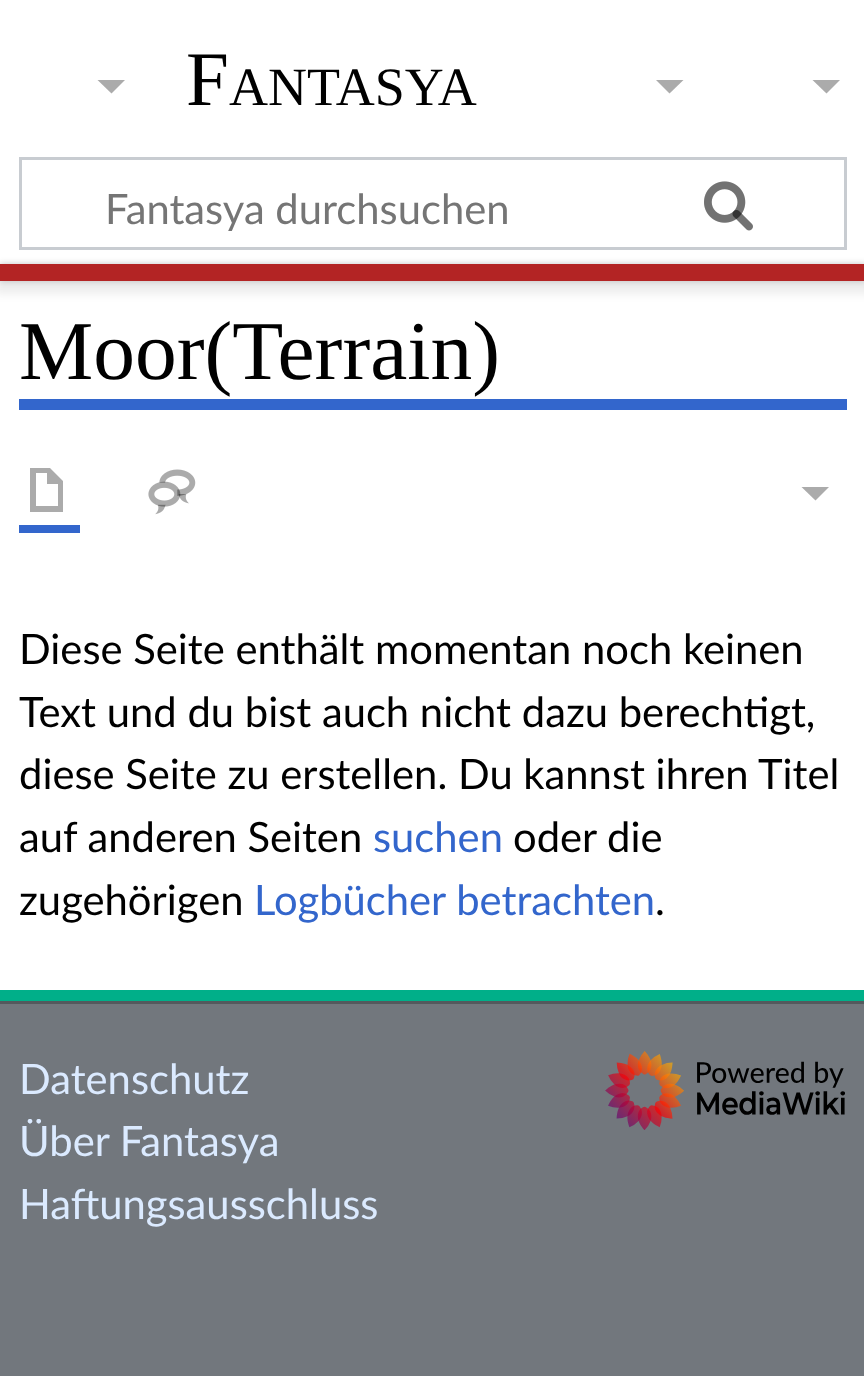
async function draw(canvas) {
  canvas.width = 864
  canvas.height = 1376
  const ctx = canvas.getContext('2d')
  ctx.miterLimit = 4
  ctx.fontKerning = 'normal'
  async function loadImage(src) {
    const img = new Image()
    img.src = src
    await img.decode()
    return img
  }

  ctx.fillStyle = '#72777d'
  ctx.fillRect(0, 0, 864, 1376)
  ctx.fillStyle = '#fff'
  ctx.fillRect(0, 0, 864, 264)
  ctx.font = '77px Liberation Serif'
  ctx.fillStyle = '#000'
  ctx.fillText('F', 186, 105)
  ctx.font = '54px Liberation Serif'
  ctx.fillText('ANTASYA', 229, 105)
  ctx.fillStyle = '#ababab'
  ctx.beginPath()
  ctx.moveTo(840, 80)
  ctx.lineTo(826.5, 93.5)
  ctx.lineTo(812.5, 80)
  ctx.closePath()
  ctx.fill()
  ctx.strokeStyle = '#c8ccd1'
  ctx.lineWidth = 3
  ctx.strokeRect(20.5, 158.5, 825, 90)
  ctx.drawImage(await loadImage('image0.png'), 704, 181, 49, 50)
  ctx.save()
  ctx.beginPath()
  ctx.rect(105, 182, 541, 49)
  ctx.clip()
  ctx.font = '41.75px Lato'
  ctx.fillStyle = '#757575'
  ctx.fillText('Fantasya durchsuchen', 105, 224)
  ctx.restore()
  ctx.drawImage(await loadImage('image1.png'), 704, 181, 49, 50)
  ctx.fillStyle = '#fff'
  ctx.fillRect(0, 281, 864, 709)
  ctx.fillStyle = '#00000033'
  ctx.filter = 'blur(3px)'
  ctx.beginPath()
  ctx.rect(0, 264, 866, 17)
  ctx.fill()
  ctx.filter = 'none'
  ctx.fillStyle = '#00000012'
  ctx.filter = 'blur(4px)'
  ctx.beginPath()
  ctx.rect(-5, 267, 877, 27)
  ctx.fill()
  ctx.filter = 'none'
  ctx.fillStyle = '#b32424'
  ctx.fillRect(0, 264, 864, 17)
  ctx.fillStyle = '#00af89'
  ctx.fillRect(0, 990, 864, 11)
  ctx.fillStyle = '#ababab'
  ctx.beginPath()
  ctx.moveTo(125, 80)
  ctx.lineTo(111.5, 93.5)
  ctx.lineTo(97.5, 80)
  ctx.closePath()
  ctx.fill()
  ctx.beginPath()
  ctx.moveTo(683.5, 80)
  ctx.lineTo(669.5, 93.5)
  ctx.lineTo(656, 80)
  ctx.closePath()
  ctx.fill()
  ctx.fillStyle = '#36c'
  ctx.fillRect(19, 399, 828, 11)
  ctx.font = '83.5px Liberation Serif'
  ctx.fillStyle = '#000'
  ctx.fillText('Moor(Terrain)', 19, 379)
  ctx.fillStyle = '#36c'
  ctx.fillRect(19, 525, 61, 8)
  ctx.fillStyle = '#ababab'
  ctx.beginPath()
  ctx.moveTo(30, 468)
  ctx.lineTo(30, 512)
  ctx.lineTo(63, 512)
  ctx.lineTo(63, 481)
  ctx.lineTo(50, 468)
  ctx.closePath()
  ctx.moveTo(36, 473)
  ctx.lineTo(47, 473)
  ctx.lineTo(47, 484)
  ctx.lineTo(58, 484)
  ctx.lineTo(58, 506)
  ctx.lineTo(36, 506)
  ctx.closePath()
  ctx.fill()
  ctx.drawImage(await loadImage('image2.png'), 148, 469, 48, 46)
  ctx.beginPath()
  ctx.moveTo(829, 487)
  ctx.lineTo(815.5, 500.5)
  ctx.lineTo(801.5, 487)
  ctx.closePath()
  ctx.fill()
  ctx.font = '41.75px Lato'
  ctx.fillStyle = '#000'
  ctx.fillText('Diese Seite enthält momentan noch keinen', 19, 664)
  ctx.fillText('Text und du bist auch nicht dazu berechtigt,', 19, 727)
  ctx.fillText('diese Seite zu erstellen. Du kannst ihren Titel', 19, 789)
  ctx.fillText('auf anderen Seiten', 19, 852)
  ctx.fillStyle = '#36c'
  ctx.fillText('suchen', 373, 852)
  ctx.fillStyle = '#000'
  ctx.fillText('oder die', 513, 852)
  ctx.fillText('zugehörigen', 19, 915)
  ctx.fillStyle = '#36c'
  ctx.fillText('Logbücher betrachten', 254, 915)
  ctx.fillStyle = '#000'
  ctx.fillText('.', 655, 915)
  ctx.fillStyle = '#54595d'
  ctx.fillRect(0, 1001, 864, 3)
  ctx.fillStyle = '#dbeaff'
  ctx.fillText('Datenschutz', 19, 1094)
  ctx.fillText('Über Fantasya', 19, 1156)
  ctx.fillText('Haftungsausschluss', 19, 1219)
  ctx.drawImage(await loadImage('image3.png'), 605, 1051, 240, 79)
}

draw(document.querySelector('canvas'))
